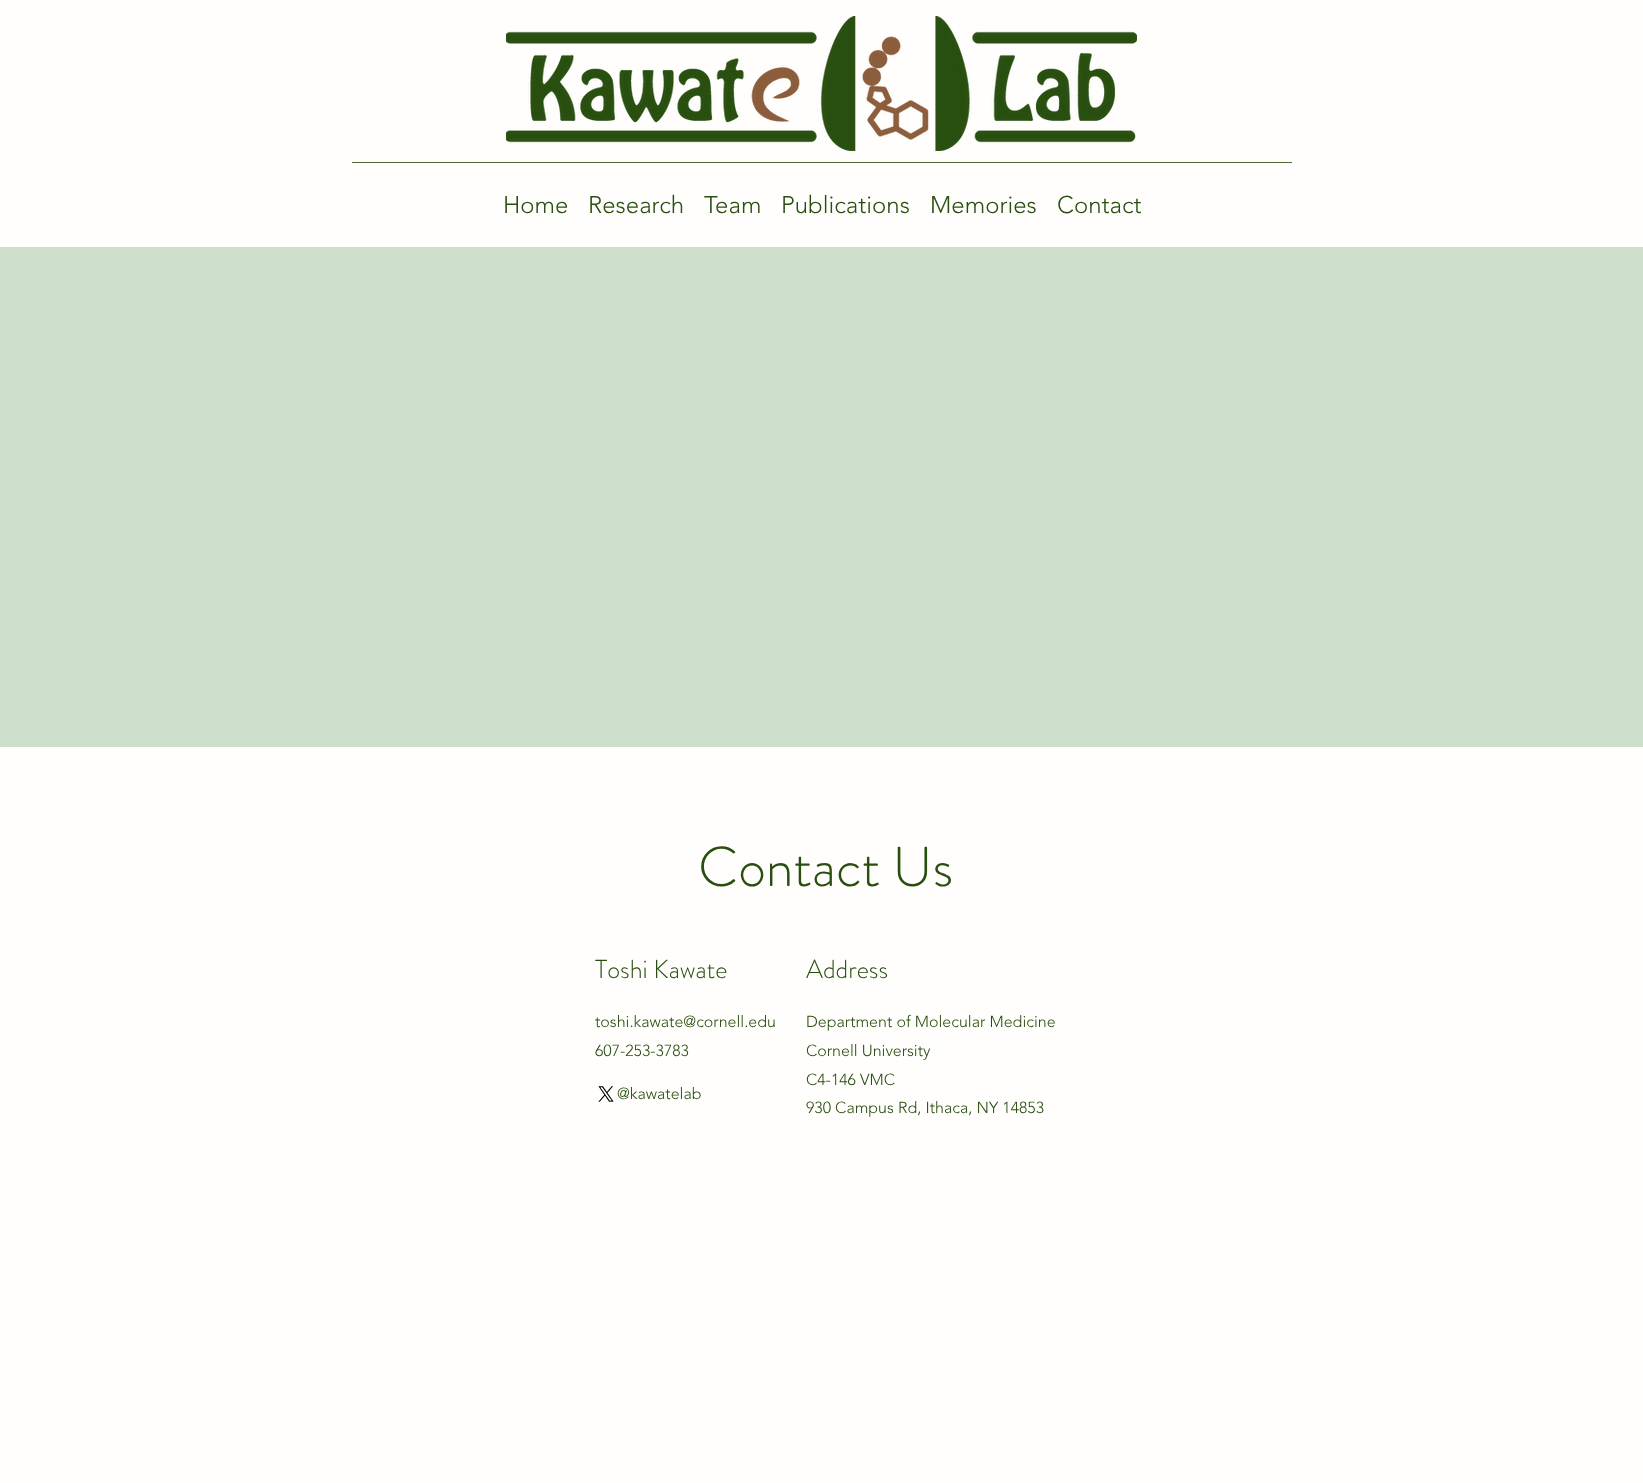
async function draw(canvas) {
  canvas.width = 1643
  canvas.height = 1483
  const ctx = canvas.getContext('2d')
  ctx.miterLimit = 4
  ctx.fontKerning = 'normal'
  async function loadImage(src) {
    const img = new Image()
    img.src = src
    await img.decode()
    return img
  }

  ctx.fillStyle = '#fffefc'
  ctx.fillRect(0, 0, 1643, 1483)
  ctx.drawImage(await loadImage('image0.png'), 506, 16, 631, 135)
  ctx.fillStyle = '#496933'
  ctx.fillRect(352, 162, 940, 1)
  ctx.font = '300 24px "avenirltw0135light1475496"'
  ctx.fillStyle = '#294f10'
  ctx.fillText('Home', 503, 213)
  ctx.fillText('Research', 588, 213)
  ctx.fillText('Team', 704, 213)
  ctx.fillText('Publications', 781, 213)
  ctx.fillText('Memories', 930, 213)
  ctx.fillText('Contact', 1057, 213)
  ctx.fillStyle = '#cddeca'
  ctx.fillRect(0, 247, 1643, 500)
  ctx.font = '300 56px "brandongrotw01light"'
  ctx.fillStyle = '#294f10'
  ctx.fillText('Contact Us', 698, 886)
  ctx.font = '300 26px "brandongrotw01light"'
  ctx.fillText('Toshi Kawate', 595, 978)
  ctx.fillText('Address', 806, 978)
  ctx.font = '300 16px "avenirltw0135light1475496"'
  ctx.fillText('toshi.kawate@cornell.edu', 595, 1027)
  ctx.fillText('Department of Molecular Medicine', 806, 1027)
  ctx.fillText('Cornell University', 806, 1056)
  ctx.fillText('C4-146 VMC', 806, 1085)
  ctx.fillText('930 Campus Rd, Ithaca, NY 14853', 806, 1113)
  ctx.fillText('607-253-3783', 595, 1056)
  ctx.drawImage(await loadImage('image1.png'), 598, 1086, 16, 16)
  ctx.fillText('@kawatelab', 617, 1099)
}

draw(document.querySelector('canvas'))
